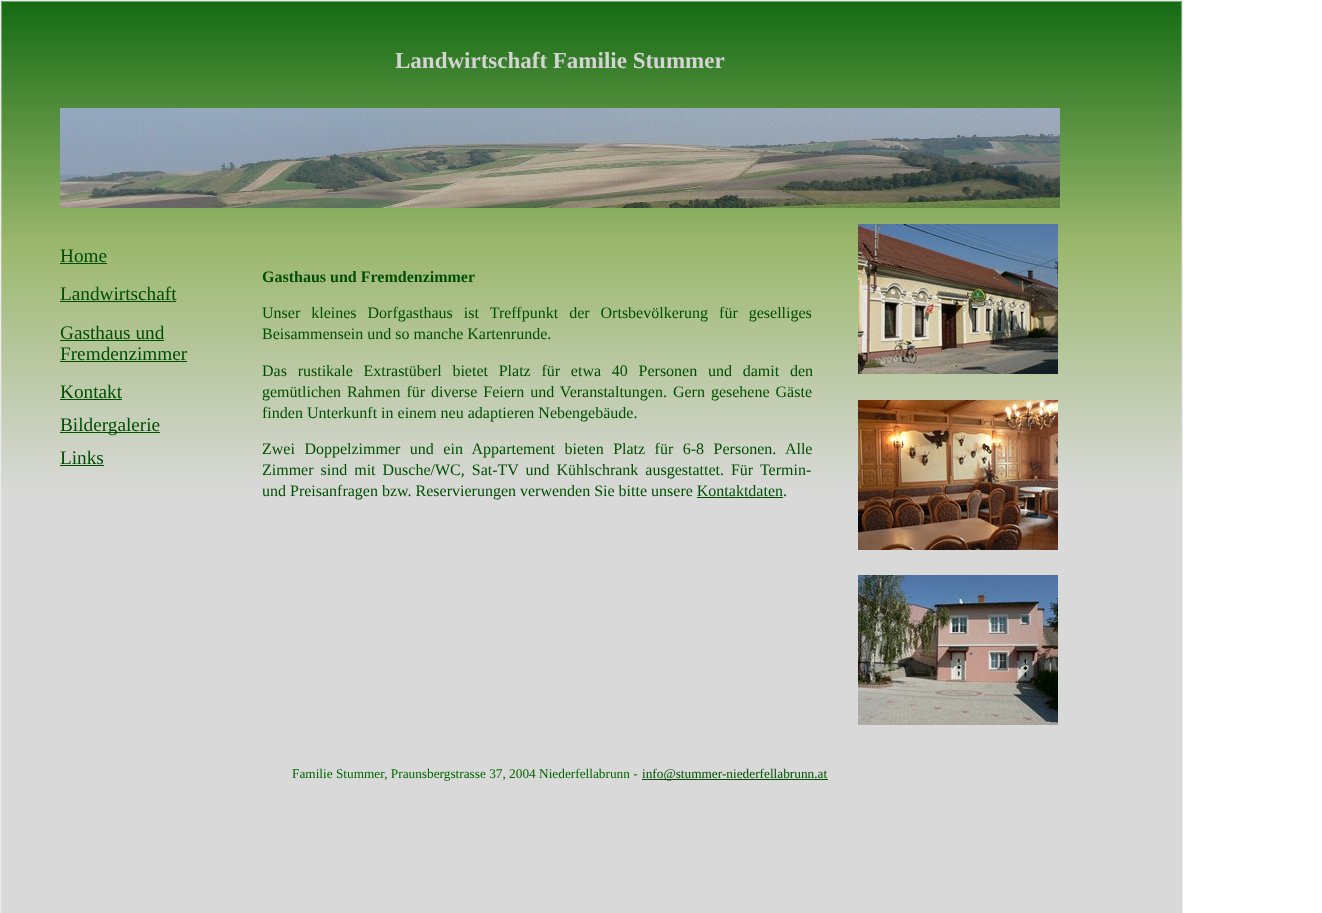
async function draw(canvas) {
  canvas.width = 1322
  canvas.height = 913
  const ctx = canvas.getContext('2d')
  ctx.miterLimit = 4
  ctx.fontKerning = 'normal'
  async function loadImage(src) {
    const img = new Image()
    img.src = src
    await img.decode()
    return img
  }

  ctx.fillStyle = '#fff'
  ctx.fillRect(0, 0, 1322, 913)
  ctx.drawImage(await loadImage('image0.png'), 0, 0, 1183, 913)
  ctx.font = 'bold 23px Liberation Serif'
  ctx.fillStyle = '#d4d4d4'
  ctx.fillText('Landwirtschaft Familie Stummer', 395, 68)
  ctx.drawImage(await loadImage('image1.png'), 60, 108, 1000, 100)
  ctx.font = '19.25px Liberation Serif'
  ctx.fillStyle = '#004f00'
  ctx.fillText('Home', 60, 262)
  ctx.fillRect(60, 263, 47, 1)
  ctx.fillText('Landwirtschaft', 60, 300)
  ctx.fillRect(60, 301, 116, 1)
  ctx.fillText('Gasthaus und', 60, 339)
  ctx.fillRect(60, 340, 104, 1)
  ctx.fillText('Fremdenzimmer', 60, 360)
  ctx.fillRect(60, 361, 127, 1)
  ctx.fillText('Kontakt', 60, 398)
  ctx.fillRect(60, 399, 62, 1)
  ctx.fillRect(60, 432, 100, 1)
  ctx.fillText('Bildergalerie', 60, 431)
  ctx.fillText('Links', 60, 464)
  ctx.fillRect(60, 465, 44, 1)
  ctx.font = 'bold 16px Liberation Serif'
  ctx.fillText('Gasthaus und Fremdenzimmer', 262, 282)
  ctx.wordSpacing = '7px'
  ctx.font = '16px Liberation Serif'
  ctx.fillText('Unser kleines Dorfgasthaus ist Treffpunkt der Ortsbevölkerung für geselliges', 262, 318)
  ctx.wordSpacing = '0px'
  ctx.fillText('Beisammensein und so manche Kartenrunde.', 262, 339)
  ctx.wordSpacing = '6.75px'
  ctx.fillText('Das rustikale Extrastüberl bietet Platz für etwa 40 Personen und damit den', 262, 376)
  ctx.wordSpacing = '2px'
  ctx.fillText('gemütlichen Rahmen für diverse Feiern und Veranstaltungen. Gern gesehene Gäste', 262, 397)
  ctx.wordSpacing = '0px'
  ctx.fillText('finden Unterkunft in einem neu adaptieren Nebengebäude.', 262, 418)
  ctx.wordSpacing = '5.5px'
  ctx.fillText('Zwei Doppelzimmer und ein Appartement bieten Platz für 6-8 Personen. Alle', 262, 454)
  ctx.wordSpacing = '3px'
  ctx.fillText('Zimmer sind mit Dusche/WC, Sat-TV und Kühlschrank ausgestattet. Für Termin-', 262, 475)
  ctx.wordSpacing = '0px'
  ctx.fillText('und Preisanfragen bzw. Reservierungen verwenden Sie bitte unsere Kontaktdaten.', 262, 496)
  ctx.fillRect(697, 497, 86, 1)
  ctx.drawImage(await loadImage('image2.png'), 858, 224, 200, 150)
  ctx.drawImage(await loadImage('image3.png'), 858, 400, 200, 150)
  ctx.drawImage(await loadImage('image4.png'), 858, 575, 200, 150)
  ctx.font = '13.3px Liberation Serif'
  ctx.fillStyle = '#060'
  ctx.fillText('Familie Stummer, Praunsbergstrasse 37, 2004 Niederfellabrunn -', 292, 778)
  ctx.fillStyle = '#004f00'
  ctx.fillRect(642, 779, 186, 1)
  ctx.fillText('info@stummer-niederfellabrunn.at', 642, 778)
}

draw(document.querySelector('canvas'))
